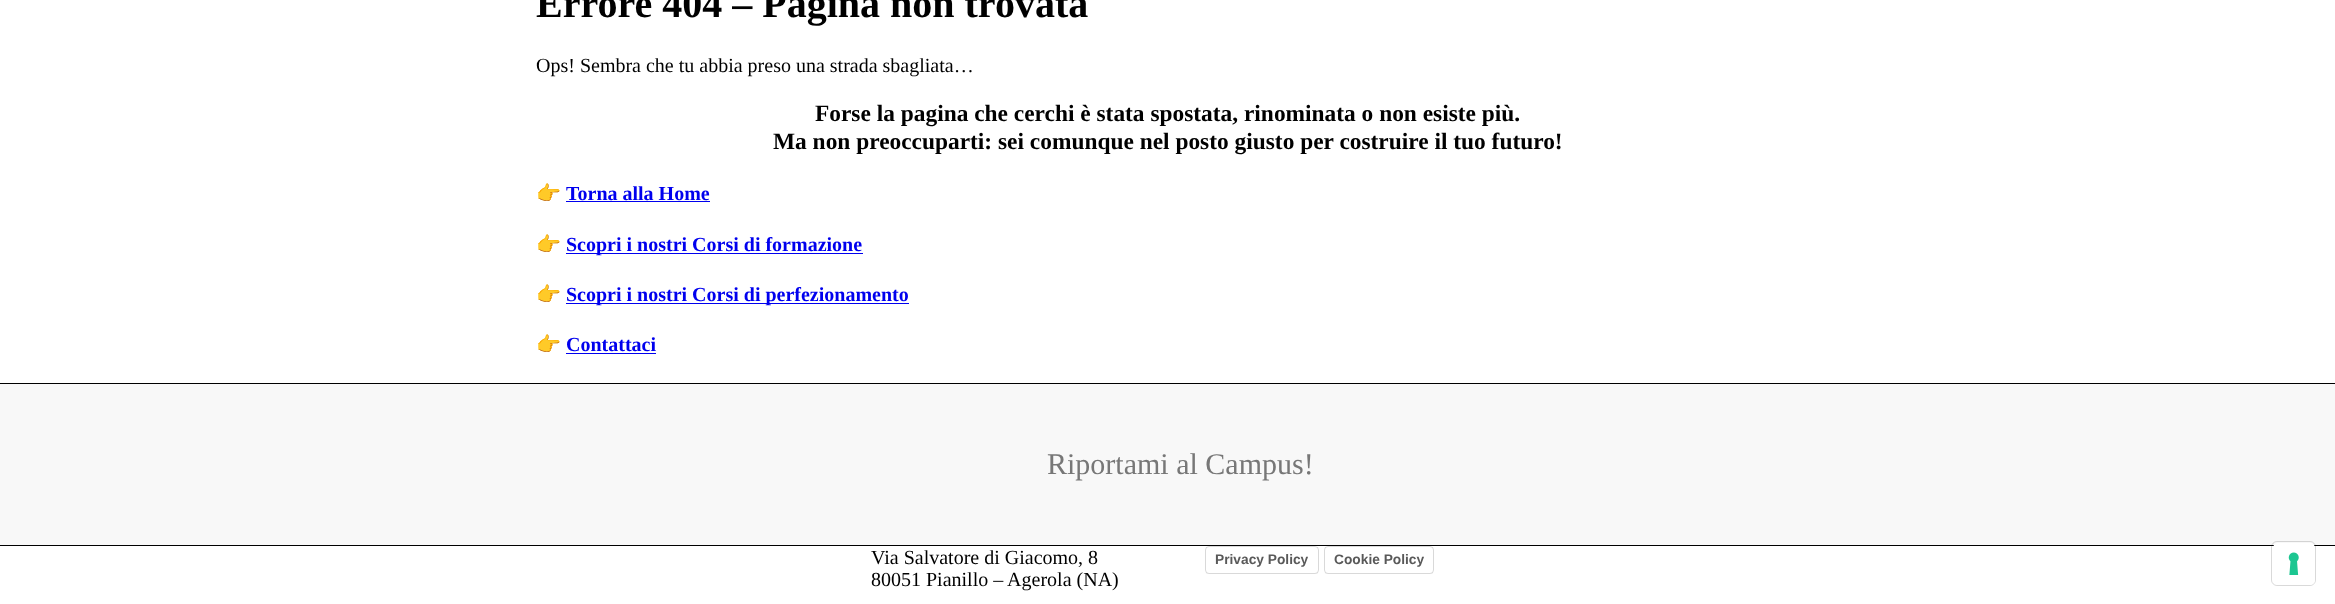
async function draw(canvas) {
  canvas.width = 2335
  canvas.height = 604
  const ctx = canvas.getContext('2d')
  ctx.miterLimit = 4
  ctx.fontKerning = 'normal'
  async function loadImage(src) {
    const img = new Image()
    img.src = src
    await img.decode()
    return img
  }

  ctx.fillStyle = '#fff'
  ctx.fillRect(0, 0, 2335, 604)
  ctx.font = 'bold 40px Liberation Serif'
  ctx.fillStyle = '#000'
  ctx.fillText('Errore 404 – Pagina non trovata', 536, 17)
  ctx.font = '20px Liberation Serif'
  ctx.fillText('Ops! Sembra che tu abbia preso una strada sbagliata…', 536, 72)
  ctx.font = 'bold 23.4px Liberation Serif'
  ctx.fillText('Forse la pagina che cerchi è stata spostata, rinominata o non esiste più.', 815, 121)
  ctx.fillText('Ma non preoccuparti: sei comunque nel posto giusto per costruire il tuo futuro!', 773, 149)
  ctx.font = 'bold 20px Noto Color Emoji'
  ctx.fillText('👉', 536, 200)
  ctx.font = 'bold 20px Liberation Serif'
  ctx.fillStyle = '#00e'
  ctx.fillText('Torna alla Home', 566, 200)
  ctx.fillRect(566, 201, 144, 1)
  ctx.font = 'bold 20px Noto Color Emoji'
  ctx.fillStyle = '#000'
  ctx.fillText('👉', 536, 251)
  ctx.fillStyle = '#00e'
  ctx.fillRect(566, 253, 297, 1)
  ctx.font = 'bold 20px Liberation Serif'
  ctx.fillText('Scopri i nostri Corsi di formazione', 566, 251)
  ctx.font = 'bold 20px Noto Color Emoji'
  ctx.fillStyle = '#000'
  ctx.fillText('👉', 536, 301)
  ctx.fillStyle = '#00e'
  ctx.fillRect(566, 303, 343, 1)
  ctx.font = 'bold 20px Liberation Serif'
  ctx.fillText('Scopri i nostri Corsi di perfezionamento', 566, 301)
  ctx.font = 'bold 20px Noto Color Emoji'
  ctx.fillStyle = '#000'
  ctx.fillText('👉', 536, 351)
  ctx.font = 'bold 20px Liberation Serif'
  ctx.fillStyle = '#00e'
  ctx.fillText('Contattaci', 566, 351)
  ctx.fillRect(566, 353, 90, 1)
  ctx.fillStyle = '#000'
  ctx.fillRect(0, 383, 2335, 1)
  ctx.fillStyle = '#f8f8f8'
  ctx.fillRect(0, 384, 2335, 161)
  ctx.font = '30px Liberation Serif'
  ctx.fillStyle = '#777'
  ctx.fillText('Riportami al Campus!', 1047, 474)
  ctx.fillStyle = '#000'
  ctx.fillRect(0, 545, 2335, 1)
  ctx.font = '20px Liberation Serif'
  ctx.fillText('Via Salvatore di Giacomo, 8', 871, 564)
  ctx.fillText('80051 Pianillo – Agerola (NA)', 871, 586)
  ctx.fillStyle = '#00000026'
  ctx.filter = 'blur(0.5px)'
  ctx.beginPath()
  ctx.roundRect(1206, 549, 112, 25, 2.5)
  ctx.fill()
  ctx.filter = 'none'
  ctx.fillStyle = '#fff'
  ctx.beginPath()
  ctx.roundRect(1205, 546, 114, 28, 4)
  ctx.fill()
  ctx.beginPath()
  ctx.roundRect(1205.5, 546.5, 113, 27, 3.5)
  ctx.strokeStyle = '#00000026'
  ctx.stroke()
  ctx.font = 'bold 13.75px Liberation Sans'
  ctx.fillStyle = '#595959'
  ctx.fillText('Privacy Policy', 1215, 564)
  ctx.fillStyle = '#00000026'
  ctx.filter = 'blur(0.5px)'
  ctx.beginPath()
  ctx.roundRect(1325, 549, 108, 25, 2.5)
  ctx.fill()
  ctx.filter = 'none'
  ctx.fillStyle = '#fff'
  ctx.beginPath()
  ctx.roundRect(1324, 546, 110, 28, 4)
  ctx.fill()
  ctx.beginPath()
  ctx.roundRect(1324.5, 546.5, 109, 27, 3.5)
  ctx.stroke()
  ctx.fillStyle = '#595959'
  ctx.fillText('Cookie Policy', 1334, 564)
  ctx.beginPath()
  ctx.roundRect(2271.5, 541.5, 44, 44, 5.5)
  ctx.stroke()
  ctx.fillStyle = '#fff'
  ctx.beginPath()
  ctx.roundRect(2273, 543, 42, 42, 5)
  ctx.fill()
  ctx.drawImage(await loadImage('image0.png'), 2288, 552, 11, 23)
}

draw(document.querySelector('canvas'))
